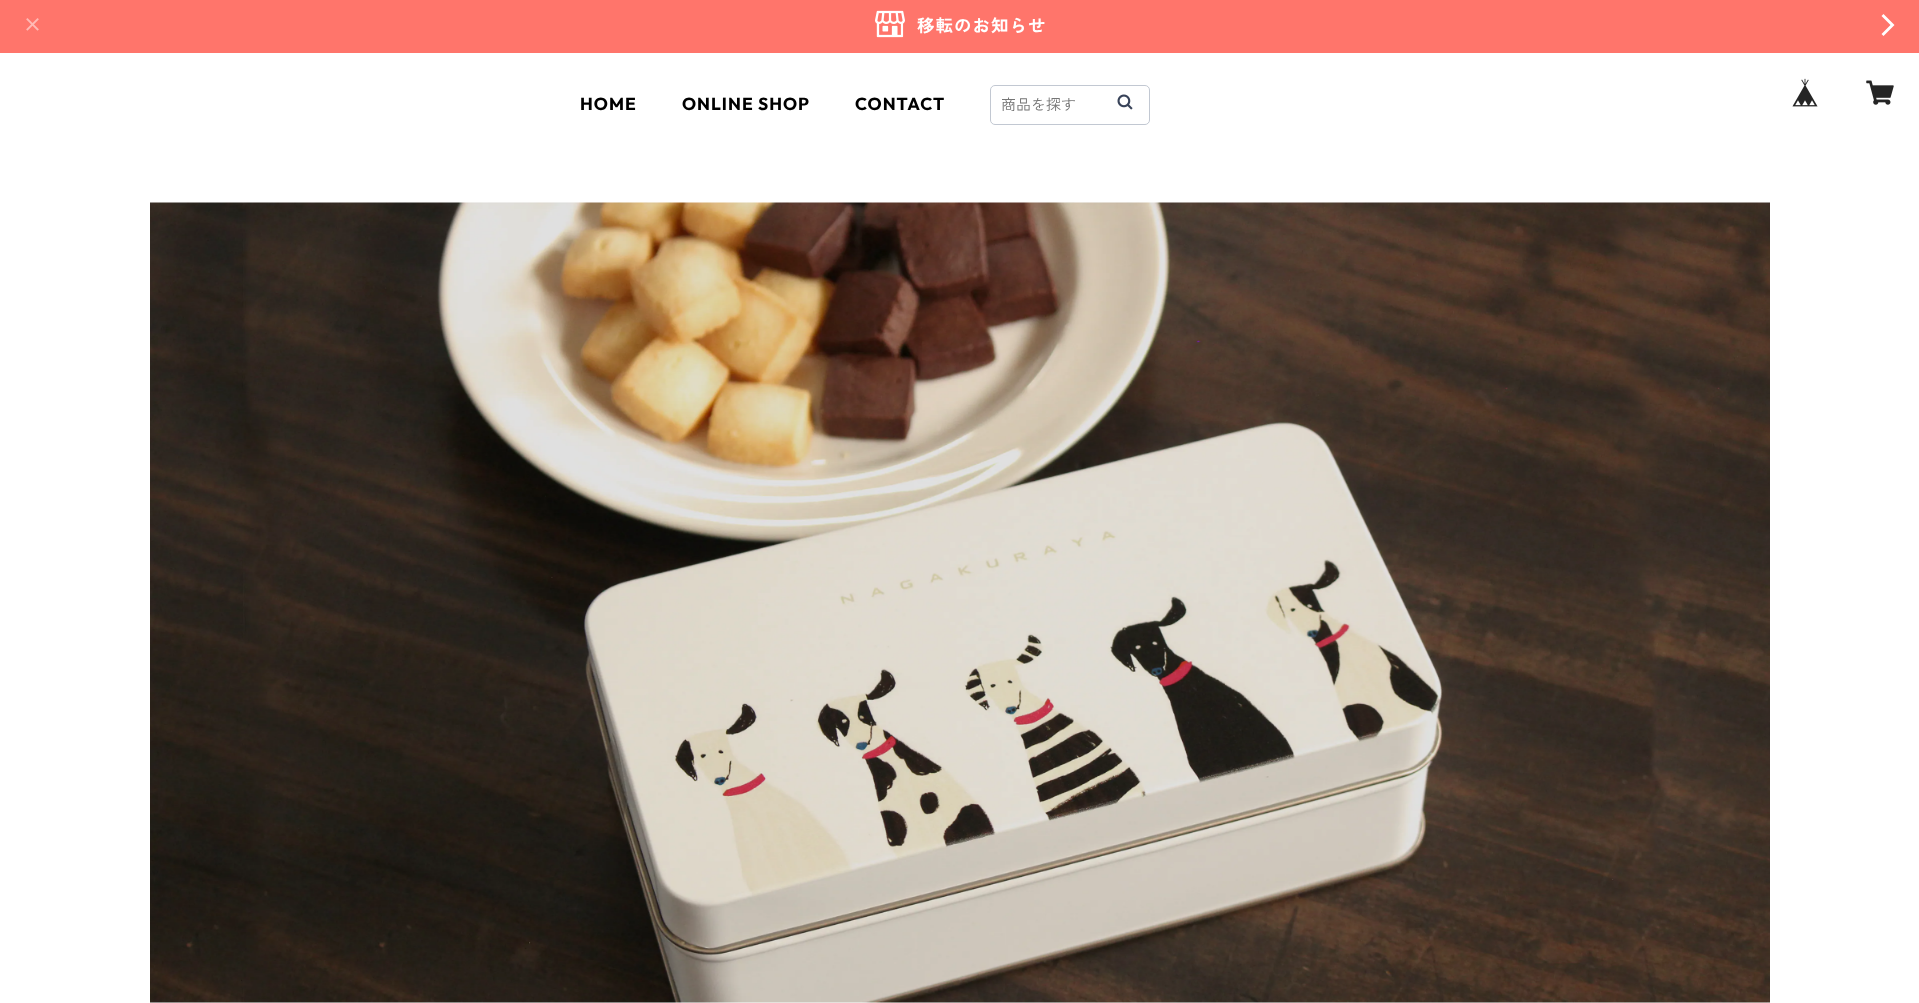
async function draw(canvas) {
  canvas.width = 1919
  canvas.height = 1003
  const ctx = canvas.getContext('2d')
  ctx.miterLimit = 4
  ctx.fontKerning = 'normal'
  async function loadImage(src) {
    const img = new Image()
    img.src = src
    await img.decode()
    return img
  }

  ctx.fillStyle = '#fff'
  ctx.fillRect(0, 0, 1919, 1003)
  ctx.fillStyle = '#ff756b'
  ctx.fillRect(0, 0, 1919, 53)
  ctx.drawImage(await loadImage('image0.png'), 26, 18, 13, 13)
  ctx.drawImage(await loadImage('image1.png'), 875, 10, 30, 28)
  ctx.letterSpacing = '1px'
  ctx.font = 'bold 17.5px Zen Kaku Gothic New'
  ctx.fillStyle = '#fff'
  ctx.fillText('移転のお知らせ', 917, 32)
  ctx.beginPath()
  ctx.moveTo(1890.5, 25)
  ctx.lineTo(1881.5, 16)
  ctx.lineTo(1883.5, 14)
  ctx.lineTo(1894.5, 25)
  ctx.lineTo(1883.5, 36)
  ctx.lineTo(1881.5, 34)
  ctx.closePath()
  ctx.fill()
  ctx.font = 'bold 17.5px Outfit'
  ctx.fillStyle = '#000'
  ctx.fillText('HOME', 580, 110)
  ctx.fillText('ONLINE SHOP', 682, 110)
  ctx.fillText('CONTACT', 855, 110)
  ctx.beginPath()
  ctx.roundRect(990.5, 85.5, 159, 39, 4.5)
  ctx.strokeStyle = '#c2c8d2'
  ctx.stroke()
  ctx.letterSpacing = '0px'
  ctx.font = '15px Zen Kaku Gothic New'
  ctx.fillStyle = '#757575'
  ctx.fillText('商品を探す', 1001, 110)
  ctx.drawImage(await loadImage('image2.png'), 1117, 94, 16, 16)
  ctx.drawImage(await loadImage('image3.png'), 150, 202, 1620, 801)
  ctx.drawImage(await loadImage('image4.png'), 1792, 78, 26, 29)
  ctx.drawImage(await loadImage('image5.png'), 1866, 80, 28, 25)
}

draw(document.querySelector('canvas'))
